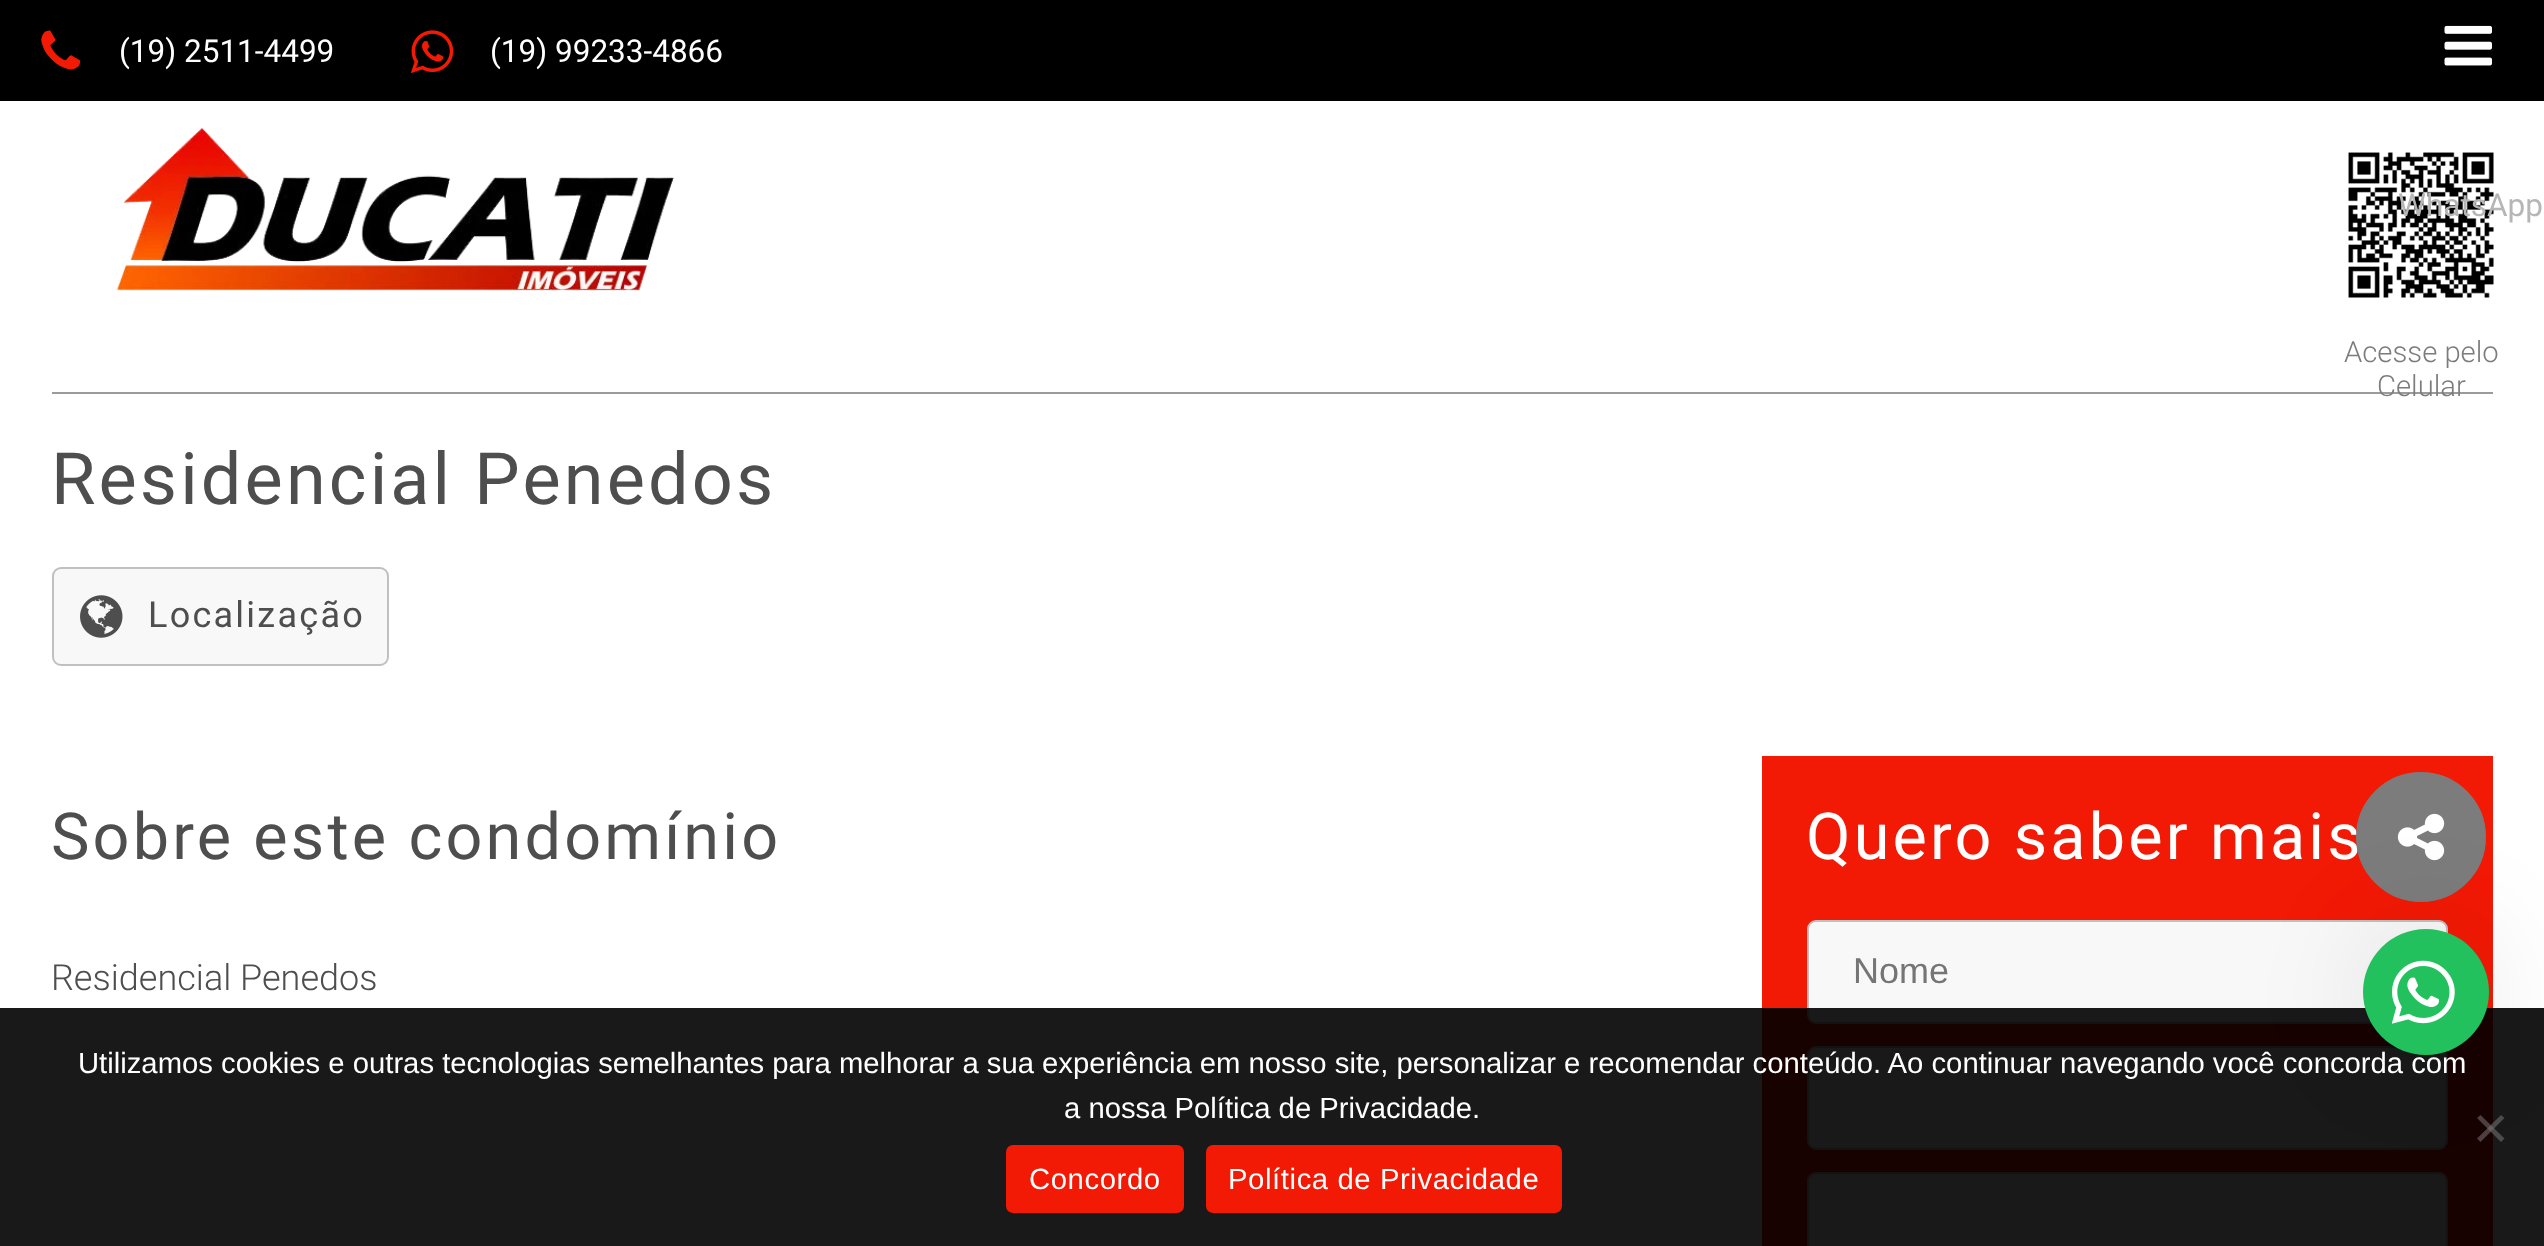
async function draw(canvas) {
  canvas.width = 2544
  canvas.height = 1246
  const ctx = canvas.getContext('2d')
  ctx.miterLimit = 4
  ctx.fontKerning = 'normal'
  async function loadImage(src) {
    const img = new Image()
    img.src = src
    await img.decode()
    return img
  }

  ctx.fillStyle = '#fff'
  ctx.fillRect(0, 0, 2544, 1246)
  ctx.fillStyle = '#000'
  ctx.fillRect(0, 0, 2544, 101)
  ctx.drawImage(await loadImage('image0.png'), 41, 30, 40, 40)
  ctx.font = '31.5px Roboto'
  ctx.fillStyle = '#fff'
  ctx.fillText('(19) 2511-4499', 119, 62)
  ctx.drawImage(await loadImage('image1.png'), 410, 30, 44, 43)
  ctx.fillText('(19) 99233-4866', 490, 62)
  ctx.drawImage(await loadImage('image2.png'), 2444, 25, 48, 41)
  ctx.drawImage(await loadImage('image3.png'), 116, 127, 558, 164)
  ctx.drawImage(await loadImage('image4.png'), 2348, 152, 146, 146)
  ctx.font = '300 29.25px Roboto'
  ctx.fillStyle = '#7c7c7c'
  ctx.fillText('Acesse pelo', 2344, 362)
  ctx.fillStyle = '#9b9b9b'
  ctx.fillRect(52, 392, 2441, 2)
  ctx.fillStyle = '#7c7c7c'
  ctx.fillText('Celular', 2377, 396)
  ctx.font = '31.5px Roboto'
  ctx.fillStyle = '#b6b6b6'
  ctx.fillText('WhatsApp', 2398, 216)
  ctx.fillStyle = '#f21905'
  ctx.fillRect(1762, 756, 731, 490)
  ctx.letterSpacing = '3.15px'
  ctx.font = '64.75px Roboto'
  ctx.fillStyle = '#fff'
  ctx.fillText('Quero saber mais', 1806, 859)
  ctx.fillStyle = '#7c7c7c'
  ctx.beginPath()
  ctx.arc(2421, 837, 64, 0, 2 * Math.PI)
  ctx.fill()
  ctx.strokeStyle = '#7c7c7c'
  ctx.lineWidth = 2
  ctx.stroke()
  ctx.drawImage(await loadImage('image5.png'), 2397, 813, 48, 48)
  ctx.font = '72px Roboto'
  ctx.fillStyle = '#4e4e4e'
  ctx.fillText('Residencial Penedos', 51, 504)
  ctx.fillStyle = '#f8f8f8'
  ctx.beginPath()
  ctx.roundRect(53, 568, 335, 97, 8)
  ctx.fill()
  ctx.strokeStyle = '#c0c0c0'
  ctx.stroke()
  ctx.drawImage(await loadImage('image6.png'), 80, 595, 43, 43)
  ctx.letterSpacing = '2.25px'
  ctx.font = '36px Roboto'
  ctx.fillStyle = '#4e4e4e'
  ctx.fillText('Localização', 148, 627)
  ctx.letterSpacing = '3.15px'
  ctx.font = '64.75px Roboto'
  ctx.fillText('Sobre este condomínio', 51, 859)
  ctx.letterSpacing = '0px'
  ctx.font = '300 36px Roboto'
  ctx.fillText('Residencial Penedos', 51, 990)
  ctx.fillStyle = '#f8f8f8'
  ctx.beginPath()
  ctx.roundRect(1808, 921, 639, 102, 8)
  ctx.fill()
  ctx.stroke()
  ctx.font = '36px Liberation Sans'
  ctx.fillStyle = '#757575'
  ctx.fillText('Nome', 1853, 983)
  ctx.fillStyle = '#f8f8f8'
  ctx.beginPath()
  ctx.roundRect(1808, 1047, 639, 102, 8)
  ctx.fill()
  ctx.stroke()
  ctx.beginPath()
  ctx.roundRect(1808, 1173, 639, 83, 8)
  ctx.fill()
  ctx.stroke()
  ctx.fillStyle = '#000000e6'
  ctx.fillRect(0, 1008, 2544, 238)
  ctx.fillStyle = '#80808080'
  ctx.beginPath()
  ctx.moveTo(2501, 1115)
  ctx.lineTo(2504.5, 1118)
  ctx.lineTo(2480.5, 1142)
  ctx.lineTo(2477, 1138.5)
  ctx.closePath()
  ctx.fill()
  ctx.beginPath()
  ctx.moveTo(2477, 1118)
  ctx.lineTo(2480.5, 1115)
  ctx.lineTo(2504.5, 1138.5)
  ctx.lineTo(2501, 1142)
  ctx.closePath()
  ctx.fill()
  ctx.fillStyle = '#0000001a'
  ctx.filter = 'blur(56px)'
  ctx.beginPath()
  ctx.roundRect(2363, 929, 126, 126, 63)
  ctx.fill()
  ctx.filter = 'none'
  ctx.font = '29.25px Liberation Sans'
  ctx.fillStyle = '#fff'
  ctx.fillText('Utilizamos cookies e outras tecnologias semelhantes para melhorar a sua experiência em nosso site, personalizar e recomendar conteúdo. Ao continuar navegando você concorda com', 78, 1073)
  ctx.fillStyle = '#22c15e'
  ctx.beginPath()
  ctx.arc(2426, 992, 63, 0, 2 * Math.PI)
  ctx.fill()
  ctx.drawImage(await loadImage('image7.png'), 2392, 960, 63, 64)
  ctx.fillStyle = '#fff'
  ctx.fillText('a nossa Política de Privacidade.', 1064, 1118)
  ctx.fillStyle = '#f21905'
  ctx.beginPath()
  ctx.roundRect(1006, 1145, 178, 68, 7)
  ctx.fill()
  ctx.letterSpacing = '0.6px'
  ctx.fillStyle = '#fff'
  ctx.fillText('Concordo', 1029, 1189)
  ctx.fillStyle = '#f21905'
  ctx.beginPath()
  ctx.roundRect(1206, 1145, 356, 68, 7)
  ctx.fill()
  ctx.fillStyle = '#fff'
  ctx.fillText('Política de Privacidade', 1228, 1189)
}

draw(document.querySelector('canvas'))
